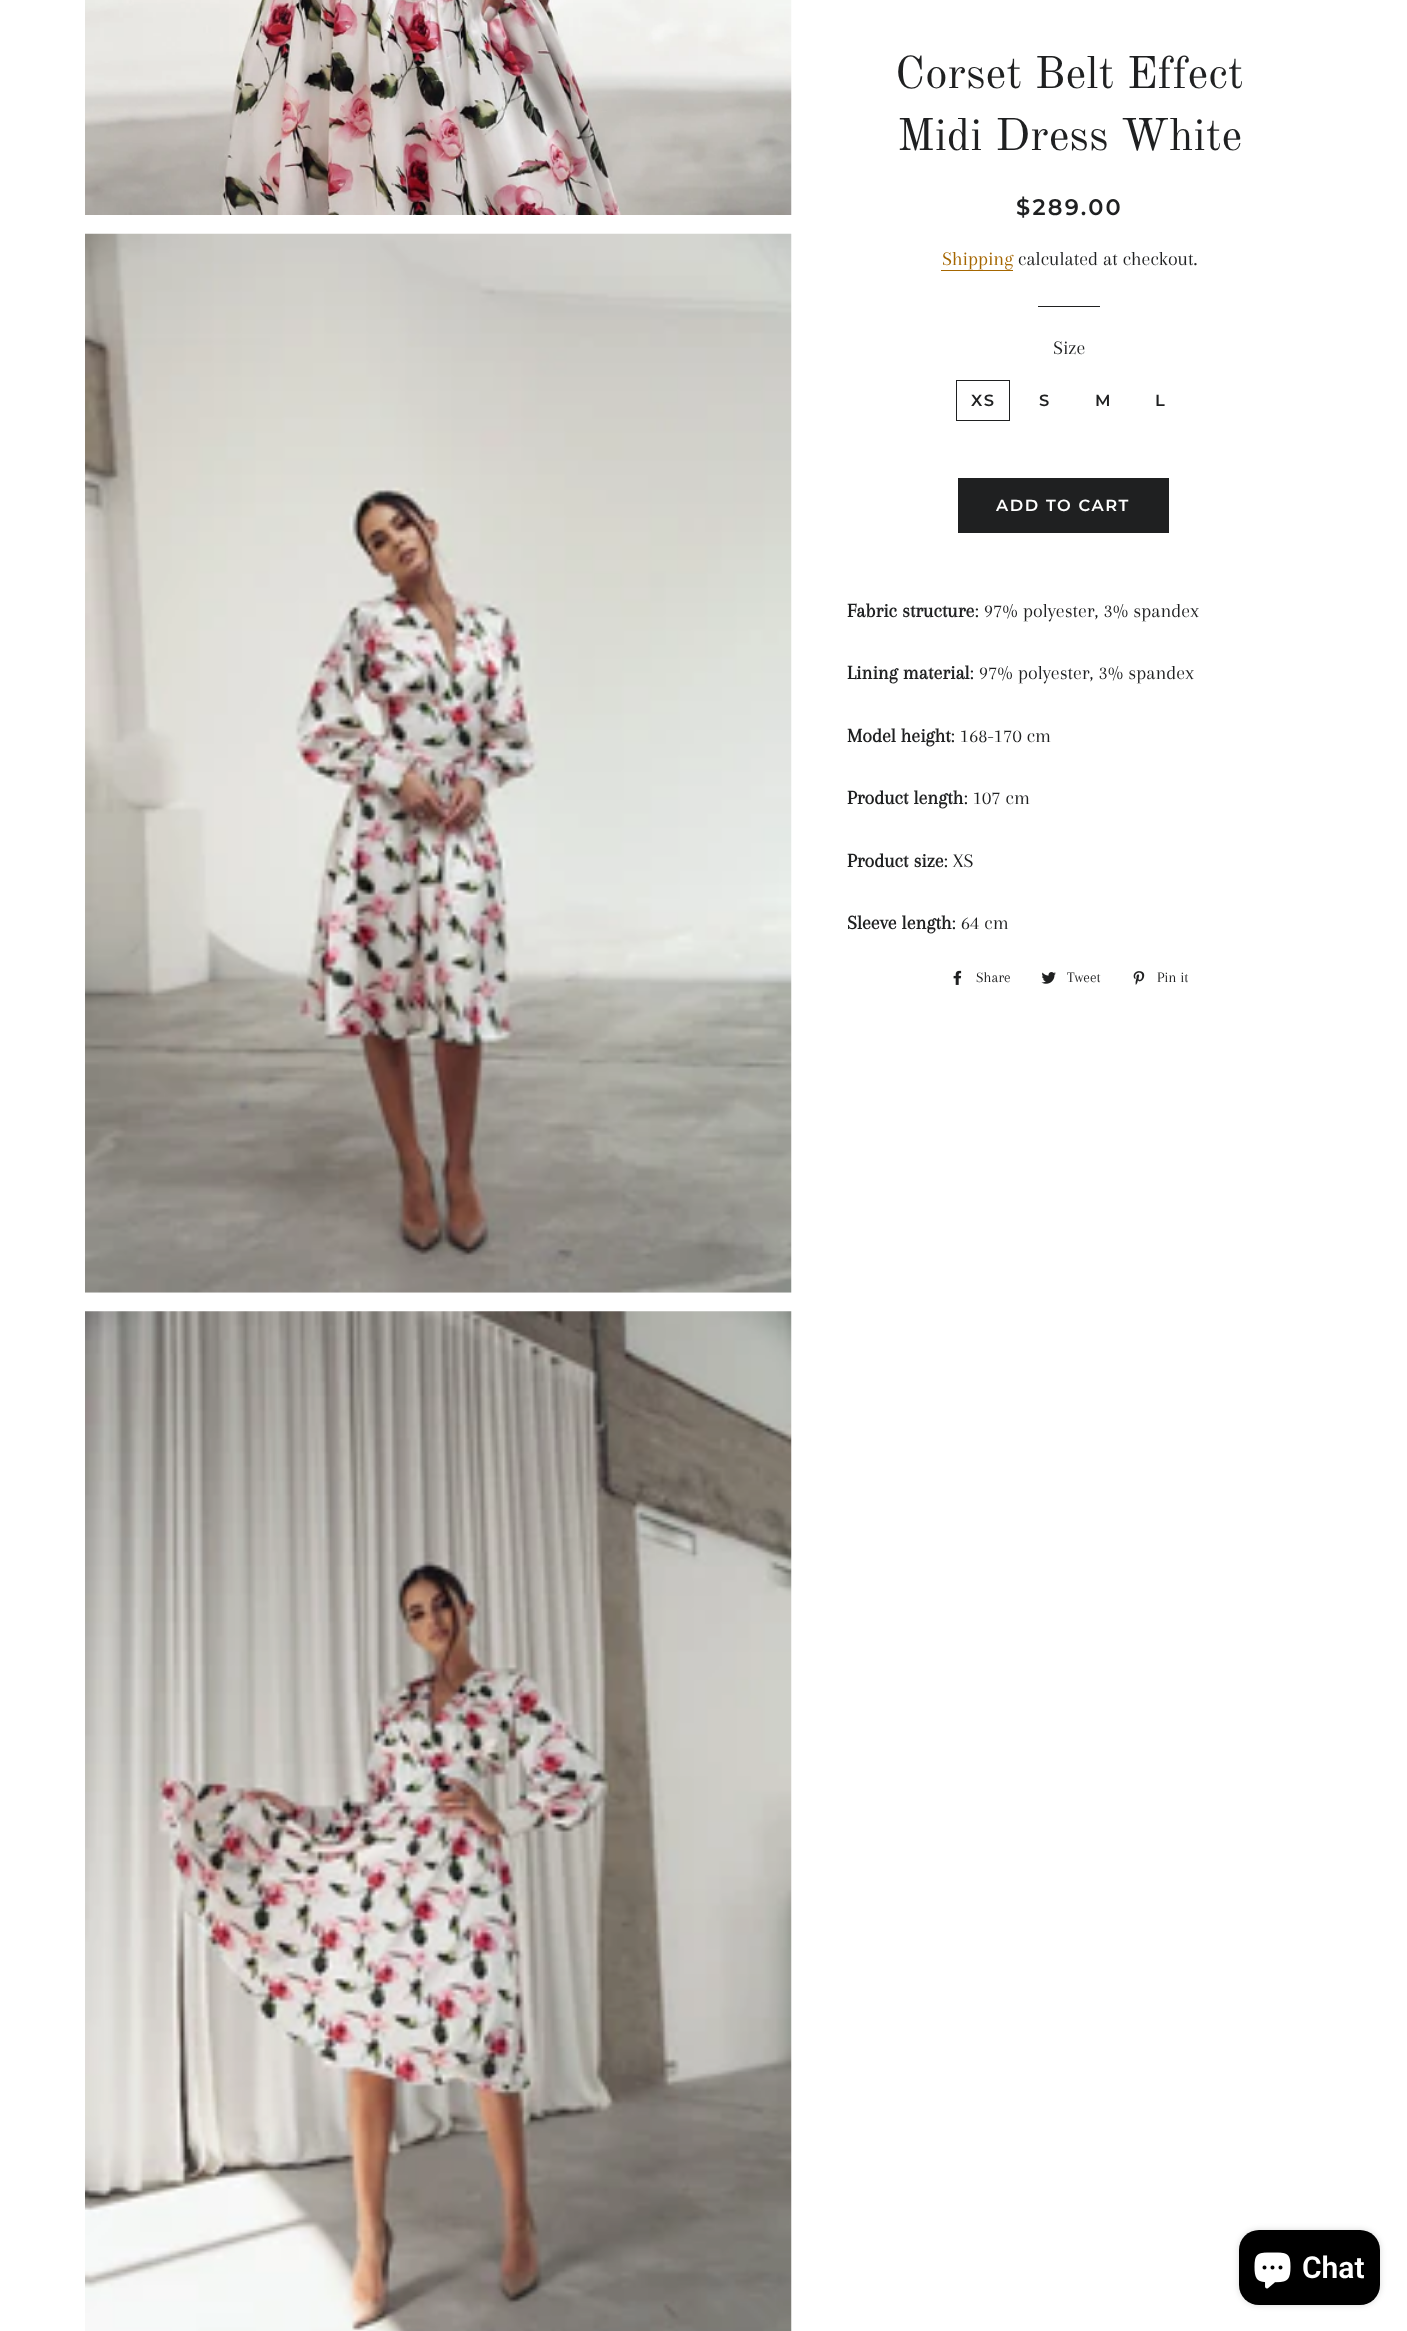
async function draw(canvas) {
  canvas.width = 1407
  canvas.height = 2331
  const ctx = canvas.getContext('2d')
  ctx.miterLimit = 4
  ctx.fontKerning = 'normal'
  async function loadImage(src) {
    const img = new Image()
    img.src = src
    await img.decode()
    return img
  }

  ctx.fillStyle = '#fff'
  ctx.fillRect(0, 0, 1407, 2331)
  ctx.drawImage(await loadImage('image0.png'), 85, 0, 707, 215)
  ctx.fillStyle = '#f6f6f6'
  ctx.fillRect(85, 1292, 706, 1)
  ctx.drawImage(await loadImage('image1.png'), 85, 233, 707, 1060)
  ctx.drawImage(await loadImage('image2.png'), 85, 1311, 707, 1020)
  ctx.font = '45px Old Standard TT'
  ctx.fillStyle = '#1f2021'
  ctx.fillText('Corset Belt Effect', 895, 88)
  ctx.fillText('Midi Dress White', 897, 150)
  ctx.letterSpacing = '2.25px'
  ctx.font = '600 22.5px Montserrat'
  ctx.fillText('$289.00', 1016, 215)
  ctx.letterSpacing = '0px'
  ctx.font = '20px Arapey'
  ctx.fillStyle = '#a56600'
  ctx.fillText('Shipping', 942, 265)
  ctx.fillRect(941, 270, 72, 1)
  ctx.fillStyle = '#1f2021'
  ctx.fillText('calculated at checkout.', 1018, 265)
  ctx.fillRect(1038, 306, 62, 1)
  ctx.fillText('Size', 1053, 354)
  ctx.strokeStyle = '#1f2021'
  ctx.strokeRect(956.5, 380.5, 53, 40)
  ctx.letterSpacing = '1.6px'
  ctx.font = '600 16.25px Montserrat'
  ctx.fillText('XS', 971, 406)
  ctx.fillText('S', 1039, 406)
  ctx.fillText('M', 1095, 406)
  ctx.fillText('L', 1155, 406)
  ctx.fillRect(958, 478, 211, 55)
  ctx.fillStyle = '#fff'
  ctx.fillText('ADD TO CART', 996, 511)
  ctx.letterSpacing = '0px'
  ctx.font = 'bold 20px Arapey'
  ctx.fillStyle = '#1f2021'
  ctx.fillText('Fabric structure', 847, 617)
  ctx.font = '20px Arapey'
  ctx.fillText(': 97% polyester, 3% spandex', 975, 617)
  ctx.font = 'bold 20px Arapey'
  ctx.fillText('Lining material', 847, 679)
  ctx.font = '20px Arapey'
  ctx.fillText(': 97% polyester, 3% spandex', 970, 679)
  ctx.font = 'bold 20px Arapey'
  ctx.fillText('Model height', 847, 742)
  ctx.font = '20px Arapey'
  ctx.fillText(': 168-170 cm', 951, 742)
  ctx.font = 'bold 20px Arapey'
  ctx.fillText('Product length', 847, 804)
  ctx.font = '20px Arapey'
  ctx.fillText(': 107 cm', 964, 804)
  ctx.font = 'bold 20px Arapey'
  ctx.fillText('Product size', 847, 867)
  ctx.font = '20px Arapey'
  ctx.fillText(': XS', 944, 867)
  ctx.font = 'bold 20px Arapey'
  ctx.fillText('Sleeve length', 847, 929)
  ctx.font = '20px Arapey'
  ctx.fillText(': 64 cm', 952, 929)
  ctx.drawImage(await loadImage('image3.png'), 953, 970, 9, 15)
  ctx.font = '15px Arapey'
  ctx.fillText('Share', 976, 982)
  ctx.drawImage(await loadImage('image4.png'), 1041, 972, 15, 12)
  ctx.fillText('Tweet', 1067, 982)
  ctx.drawImage(await loadImage('image5.png'), 1133, 971, 12, 14)
  ctx.fillText('Pin it', 1157, 982)
  ctx.fillStyle = '#00000026'
  ctx.filter = 'blur(3px)'
  ctx.beginPath()
  ctx.roundRect(1239, 2230, 141, 75, 20)
  ctx.fill()
  ctx.filter = 'none'
  ctx.fillStyle = '#000'
  ctx.beginPath()
  ctx.roundRect(1239, 2230, 141, 75, 20)
  ctx.fill()
  ctx.drawImage(await loadImage('image6.png'), 1254, 2252, 37, 37)
  ctx.font = '600 30px Roboto'
  ctx.fillStyle = '#fff'
  ctx.fillText('Chat', 1302, 2278)
}

draw(document.querySelector('canvas'))
